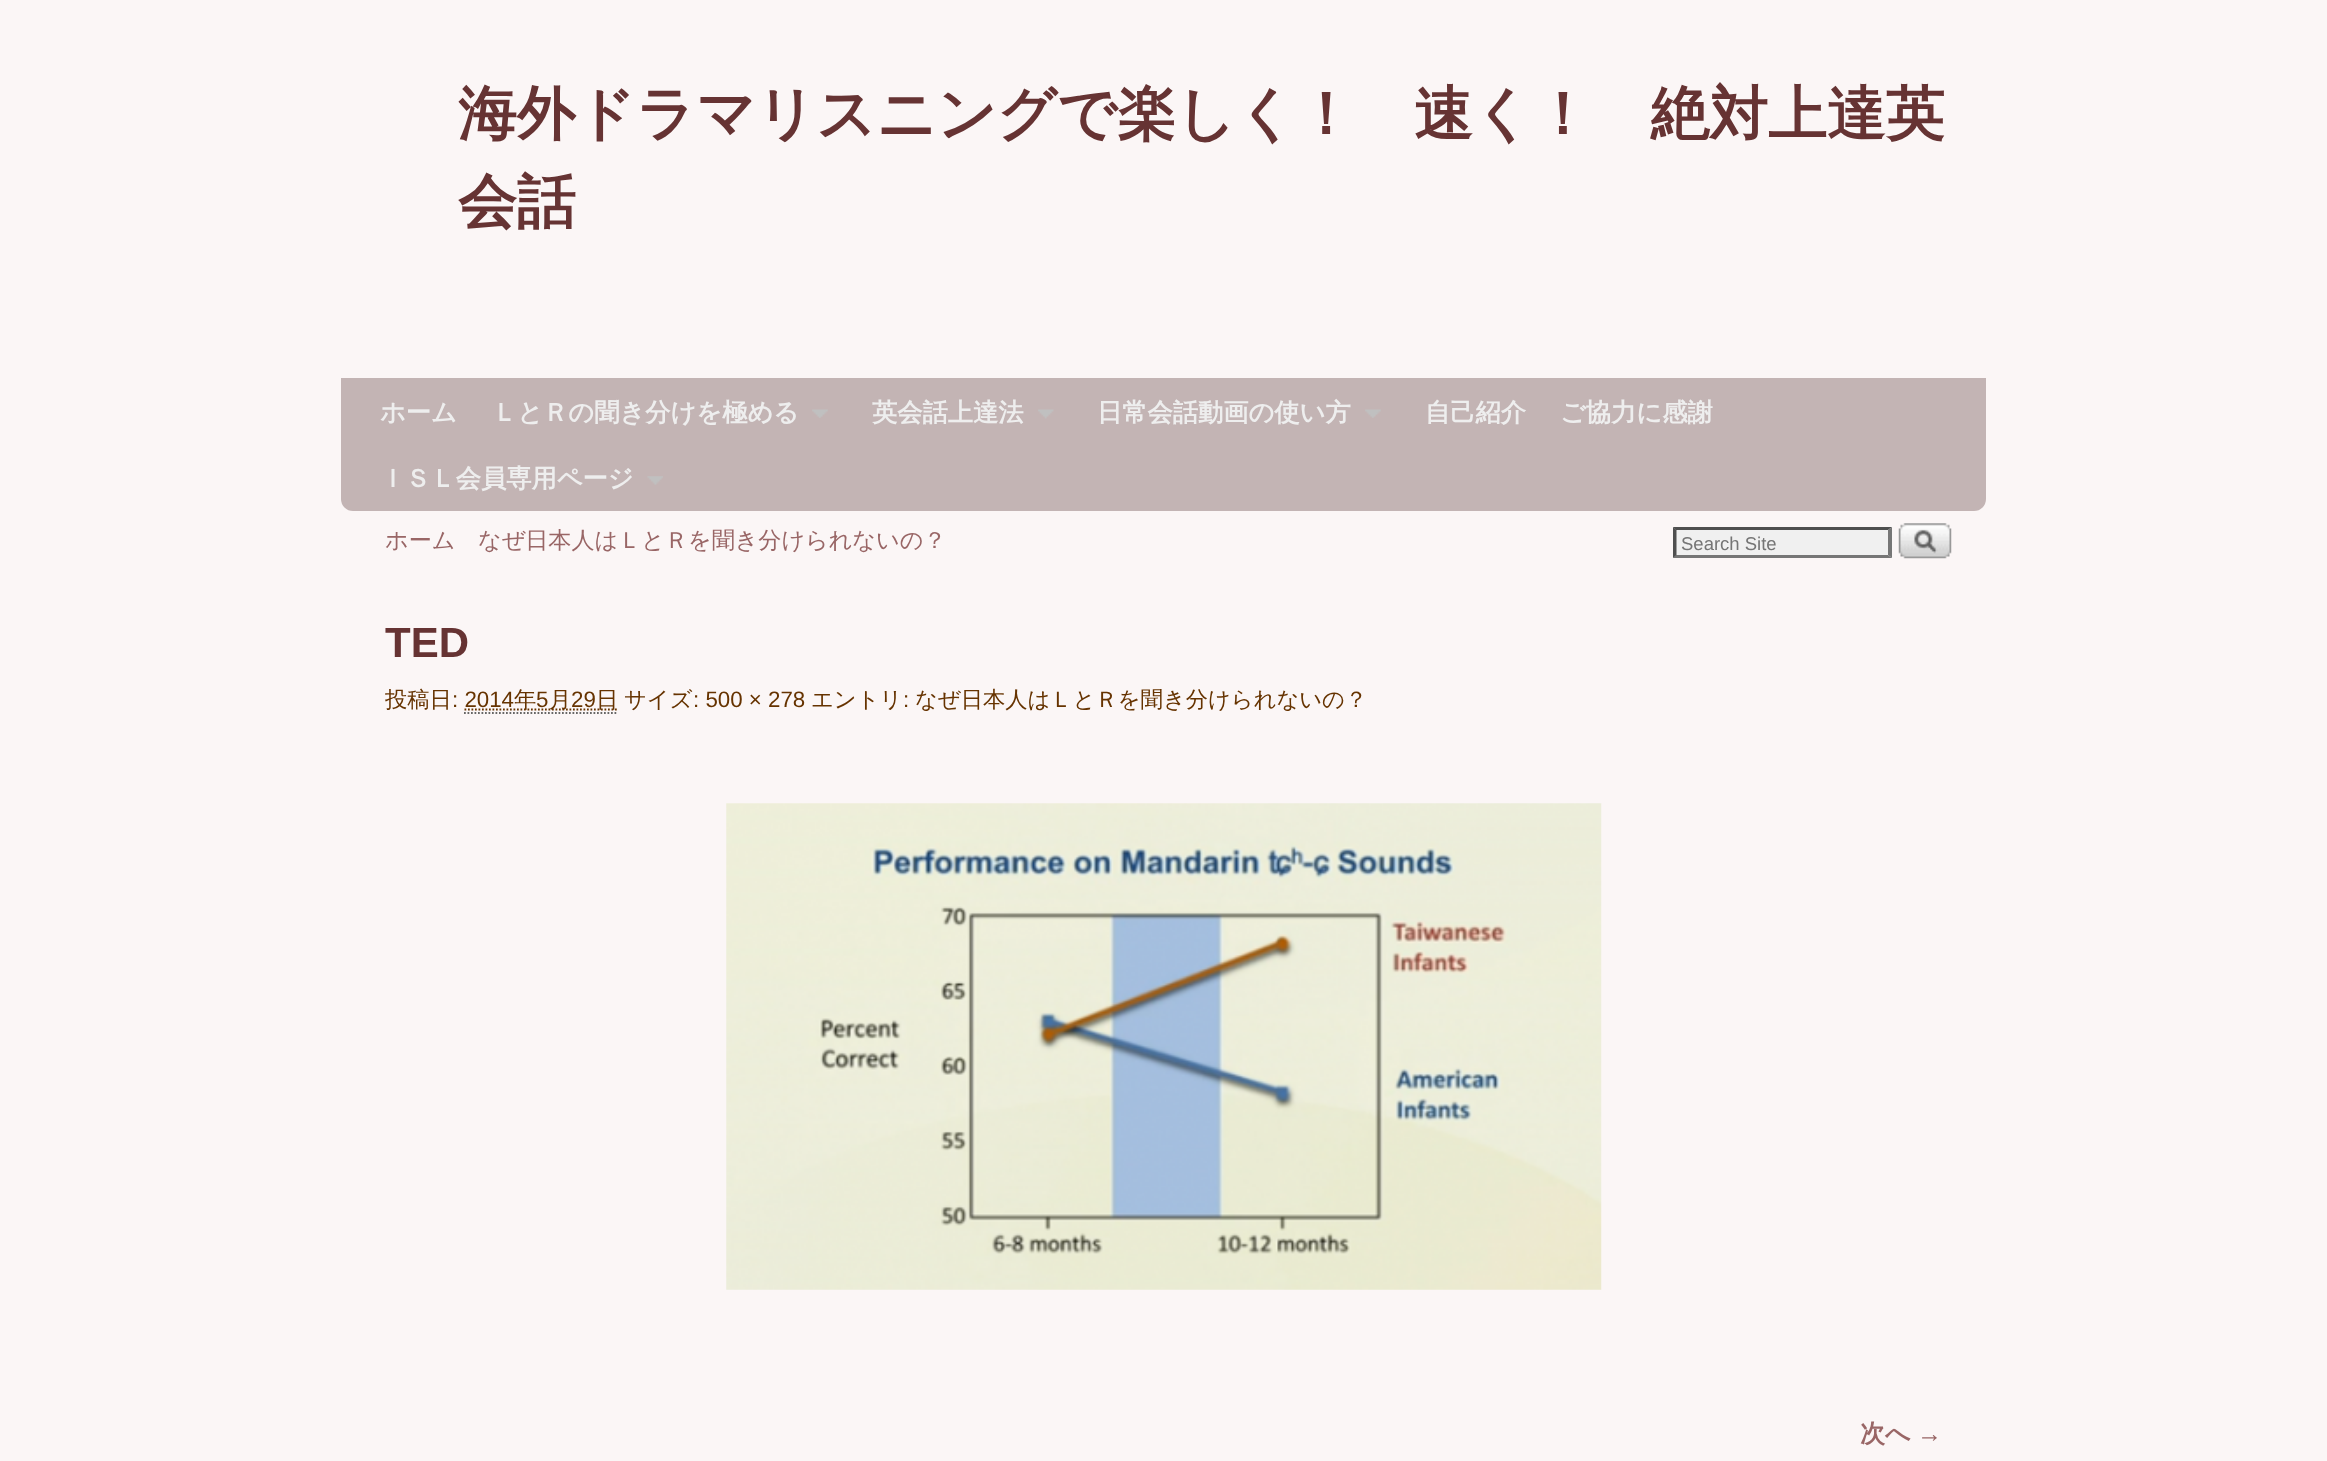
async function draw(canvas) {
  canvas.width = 2327
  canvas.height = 1461
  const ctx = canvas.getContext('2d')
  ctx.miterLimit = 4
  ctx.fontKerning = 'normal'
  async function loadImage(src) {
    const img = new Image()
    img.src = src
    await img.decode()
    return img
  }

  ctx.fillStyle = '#fbf6f6'
  ctx.fillRect(0, 0, 2327, 1461)
  ctx.font = 'bold 58.8px WenQuanYi Zen Hei'
  ctx.fillStyle = '#633'
  ctx.fillText('海外ドラマリスニングで楽しく！　速く！　絶対上達英', 458, 134)
  ctx.fillText('会話', 458, 222)
  ctx.fillStyle = '#c3b4b4'
  ctx.beginPath()
  ctx.roundRect(341, 378, 1645, 133, [0, 0, 12, 12])
  ctx.fill()
  ctx.font = 'bold 25.25px WenQuanYi Zen Hei'
  ctx.fillStyle = '#eee'
  ctx.fillText('ホーム', 380, 421)
  ctx.fillText('ＬとＲの聞き分けを極める', 492, 421)
  ctx.drawImage(await loadImage('image0.png'), 812, 409, 16, 9)
  ctx.fillText('英会話上達法', 872, 421)
  ctx.drawImage(await loadImage('image1.png'), 1038, 409, 16, 10)
  ctx.fillText('日常会話動画の使い方', 1097, 421)
  ctx.drawImage(await loadImage('image2.png'), 1365, 409, 16, 9)
  ctx.fillText('自己紹介', 1425, 421)
  ctx.fillText('ご協力に感謝', 1560, 421)
  ctx.fillText('ＩＳＬ会員専用ページ', 380, 487)
  ctx.drawImage(await loadImage('image3.png'), 647, 476, 16, 9)
  ctx.font = '500 23.1px WenQuanYi Zen Hei'
  ctx.fillStyle = '#966'
  ctx.fillText('ホーム', 385, 548)
  ctx.fillText('なぜ日本人はＬとＲを聞き分けられないの？', 478, 548)
  ctx.fillStyle = '#f0f0f0'
  ctx.fillRect(1673, 527, 219, 31)
  ctx.fillStyle = '#4f4f4f'
  ctx.beginPath()
  ctx.moveTo(1673, 527)
  ctx.lineTo(1892, 527)
  ctx.lineTo(1888, 530)
  ctx.lineTo(1676, 530)
  ctx.closePath()
  ctx.fill()
  ctx.fillStyle = '#767676'
  ctx.beginPath()
  ctx.moveTo(1892, 527)
  ctx.lineTo(1892, 558)
  ctx.lineTo(1888, 555)
  ctx.lineTo(1888, 530)
  ctx.closePath()
  ctx.fill()
  ctx.beginPath()
  ctx.moveTo(1892, 558)
  ctx.lineTo(1673, 558)
  ctx.lineTo(1676, 555)
  ctx.lineTo(1888, 555)
  ctx.closePath()
  ctx.fill()
  ctx.fillStyle = '#4f4f4f'
  ctx.beginPath()
  ctx.moveTo(1673, 558)
  ctx.lineTo(1673, 527)
  ctx.lineTo(1676.5, 530)
  ctx.lineTo(1676.5, 555)
  ctx.closePath()
  ctx.fill()
  ctx.font = '18.5px Liberation Sans'
  ctx.fillStyle = '#757575'
  ctx.fillText('Search Site', 1681, 550)
  ctx.drawImage(await loadImage('image4.png'), 1898, 523, 54, 36)
  ctx.font = 'bold 42px Liberation Sans'
  ctx.fillStyle = '#633'
  ctx.fillText('TED', 385, 657)
  ctx.font = '500 22.3px WenQuanYi Zen Hei'
  ctx.fillStyle = '#630'
  ctx.fillText('投稿日', 385, 707)
  ctx.font = '22.3px Liberation Sans'
  ctx.fillText(': 2014', 452, 707)
  ctx.beginPath()
  ctx.moveTo(464.5, 709.5)
  ctx.lineTo(618, 709.5)
  ctx.strokeStyle = '#630'
  ctx.lineWidth = 1.8
  ctx.setLineDash([1.75, 1.75])
  ctx.stroke()
  ctx.font = '500 22.3px WenQuanYi Zen Hei'
  ctx.fillText('年', 514, 707)
  ctx.font = '22.3px Liberation Sans'
  ctx.fillText('5', 536, 707)
  ctx.font = '500 22.3px WenQuanYi Zen Hei'
  ctx.fillText('月', 549, 707)
  ctx.font = '22.3px Liberation Sans'
  ctx.fillText('29', 571, 707)
  ctx.font = '500 22.3px WenQuanYi Zen Hei'
  ctx.fillText('日', 596, 707)
  ctx.beginPath()
  ctx.moveTo(464, 713)
  ctx.lineTo(618, 713)
  ctx.strokeStyle = '#666'
  ctx.stroke()
  ctx.fillText('サイズ', 624, 707)
  ctx.font = '22.3px Liberation Sans'
  ctx.fillText(': 500 × 278', 693, 707)
  ctx.font = '500 22.3px WenQuanYi Zen Hei'
  ctx.fillText('エントリ', 811, 707)
  ctx.font = '22.3px Liberation Sans'
  ctx.fillText(':', 903, 707)
  ctx.font = '500 22.3px WenQuanYi Zen Hei'
  ctx.fillText('なぜ日本人はＬとＲを聞き分けられないの？', 915, 707)
  ctx.drawImage(await loadImage('image5.png'), 726, 803, 876, 487)
  ctx.font = 'bold 25px WenQuanYi Zen Hei'
  ctx.fillStyle = '#966'
  ctx.fillText('次へ', 1860, 1442)
  ctx.font = 'bold 25px Liberation Sans'
  ctx.fillText('→', 1917, 1442)
}

draw(document.querySelector('canvas'))
